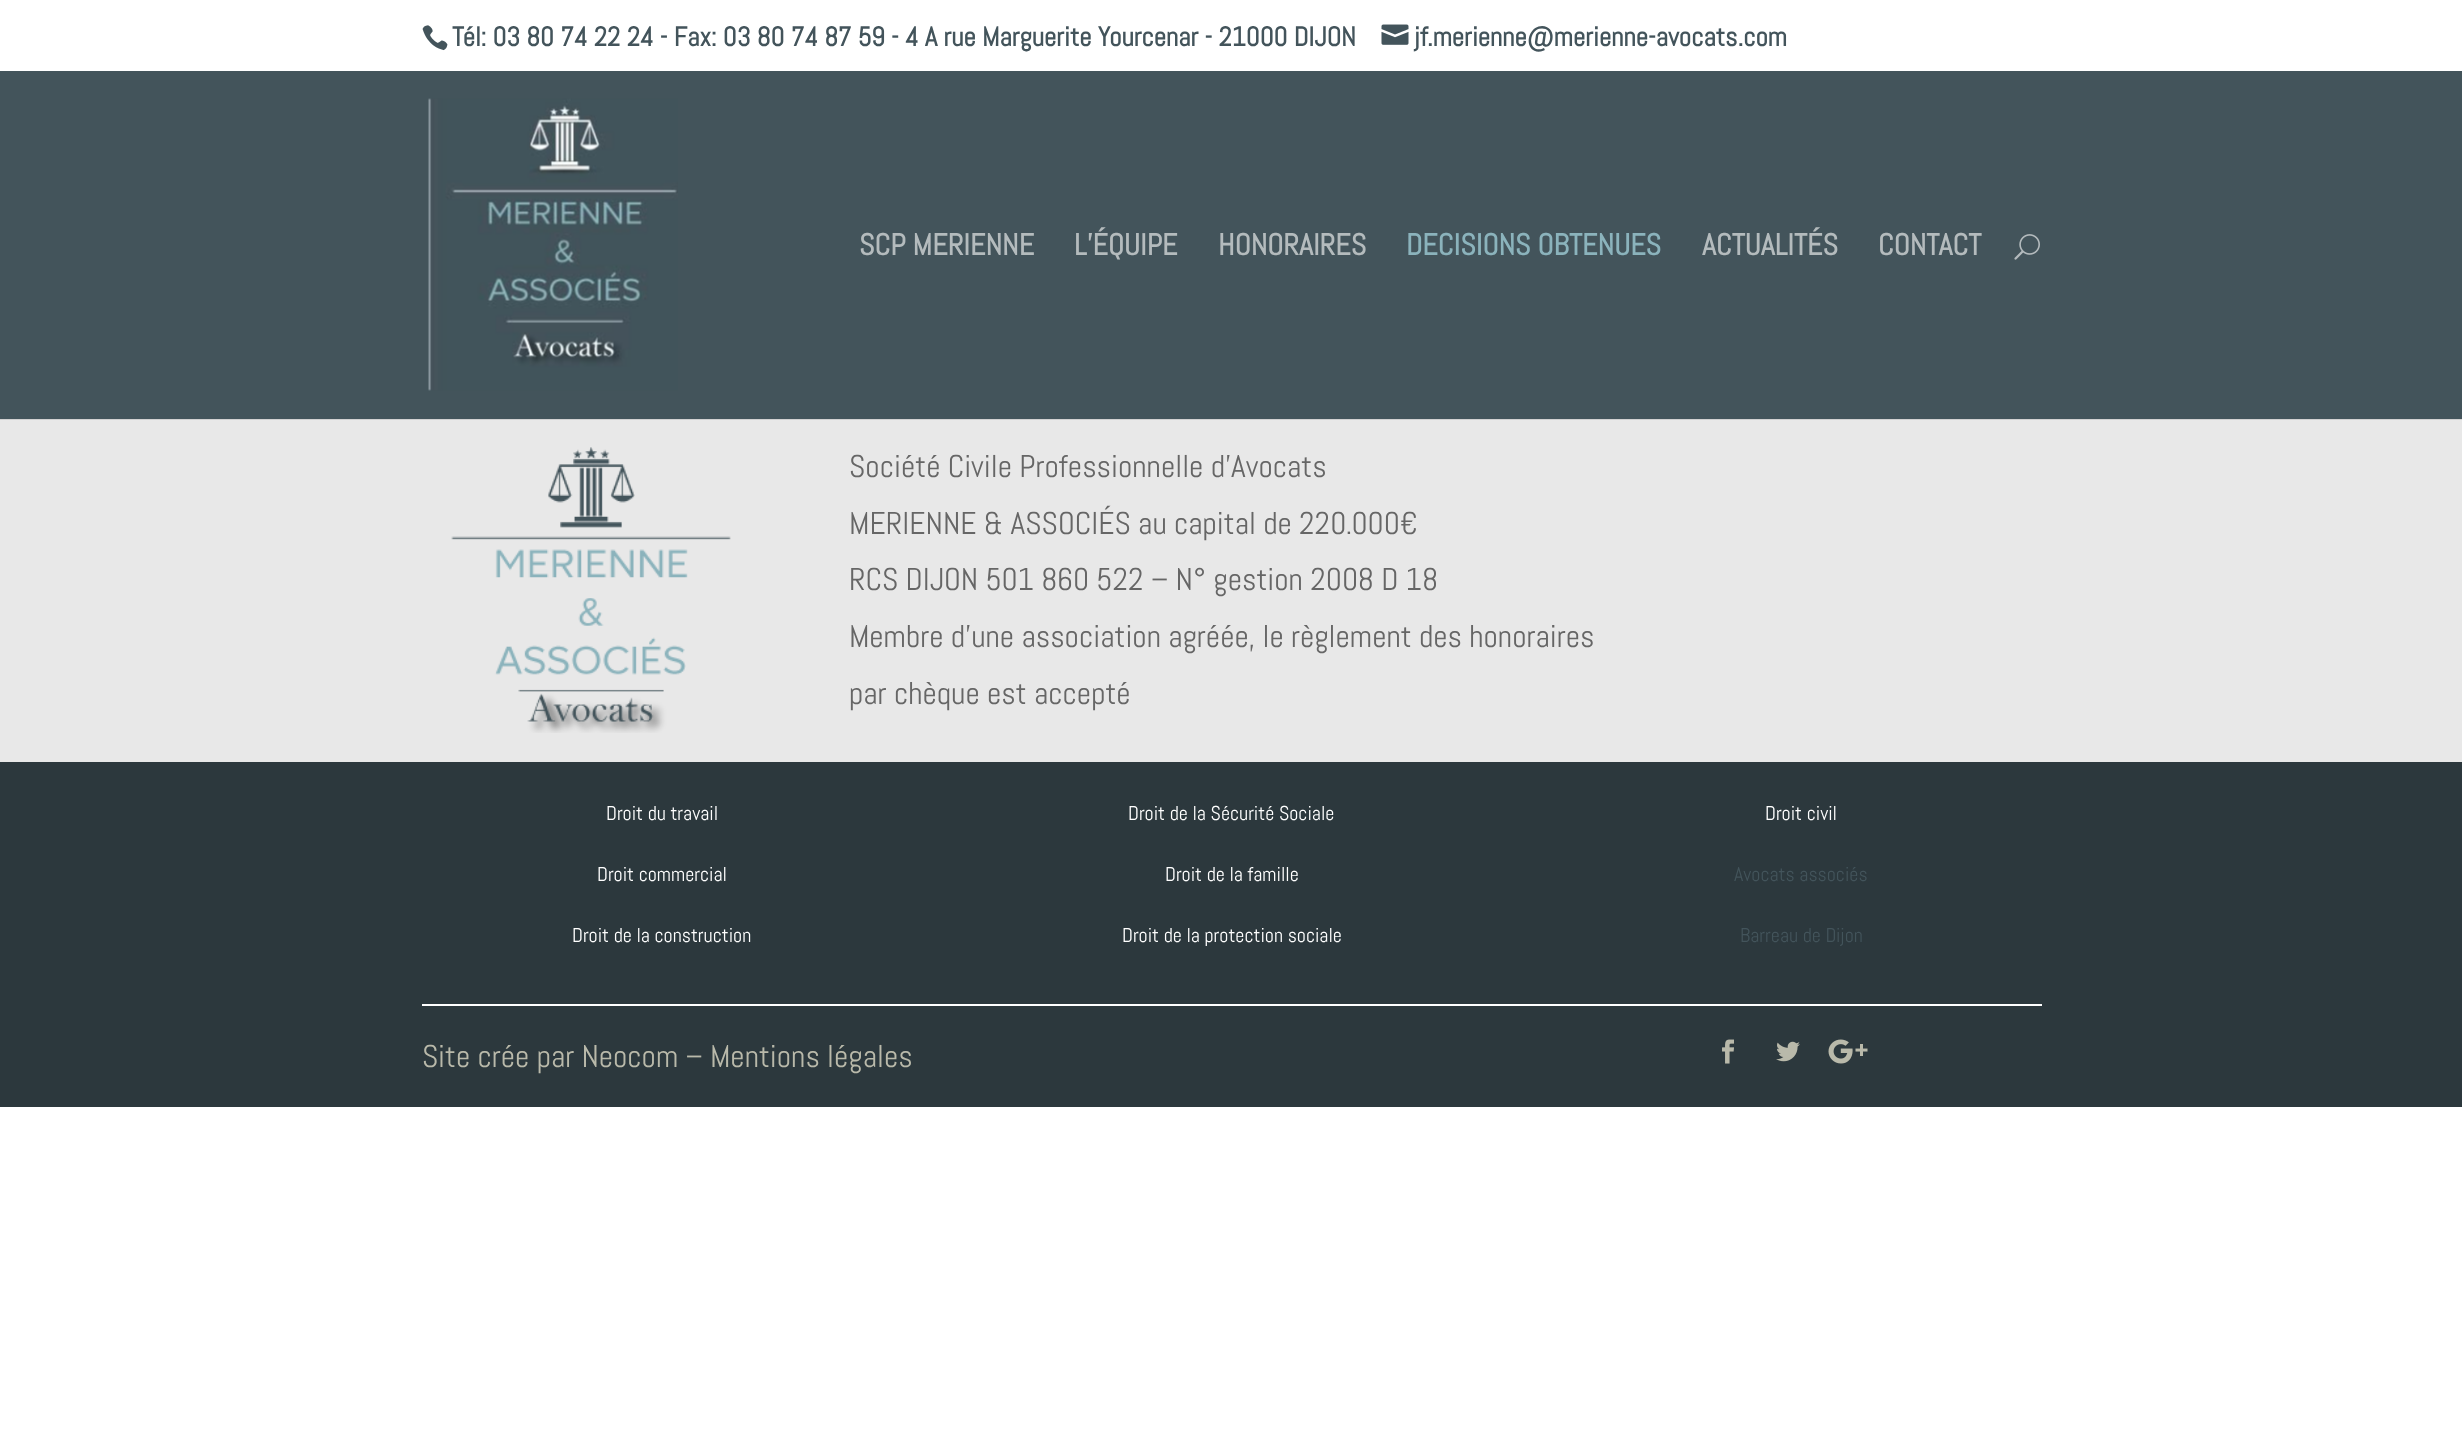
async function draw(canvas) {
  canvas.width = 2462
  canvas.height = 1440
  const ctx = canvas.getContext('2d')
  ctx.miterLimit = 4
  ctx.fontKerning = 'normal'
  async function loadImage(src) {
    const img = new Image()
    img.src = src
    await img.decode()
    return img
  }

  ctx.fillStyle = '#fff'
  ctx.fillRect(0, 0, 2462, 1440)
  ctx.drawImage(await loadImage('image0.png'), 422, 25, 26, 26)
  ctx.font = 'bold 27px Abel'
  ctx.fillStyle = '#43545b'
  ctx.fillText('Tél: 03 80 74 22 24 - Fax: 03 80 74 87 59 - 4 A rue Marguerite Yourcenar - 21000 DIJON', 452, 46)
  ctx.drawImage(await loadImage('image1.png'), 1381, 24, 28, 21)
  ctx.fillText('jf.merienne@merienne-avocats.com', 1414, 46)
  ctx.fillRect(0, 71, 2462, 348)
  ctx.drawImage(await loadImage('image2.png'), 428, 98, 250, 293)
  ctx.font = 'bold 30px Abel'
  ctx.fillStyle = '#b4bbbd'
  ctx.fillText('SCP MERIENNE', 859, 255)
  ctx.fillText('L’ÉQUIPE', 1074, 255)
  ctx.fillText('HONORAIRES', 1218, 255)
  ctx.fillStyle = '#8bb3bc'
  ctx.fillText('DECISIONS OBTENUES', 1406, 255)
  ctx.fillStyle = '#b4bbbd'
  ctx.fillText('ACTUALITÉS', 1702, 255)
  ctx.fillText('CONTACT', 1878, 255)
  ctx.drawImage(await loadImage('image3.png'), 2014, 234, 26, 26)
  ctx.fillStyle = '#e8e8e8'
  ctx.fillRect(0, 420, 2462, 342)
  ctx.fillStyle = '#d1d1d1'
  ctx.fillRect(0, 419, 2462, 1)
  ctx.drawImage(await loadImage('image4.png'), 451, 447, 280, 286)
  ctx.font = '31.5px Abel'
  ctx.fillStyle = '#666'
  ctx.fillText('Société Civile Professionnelle d’Avocats', 849, 477)
  ctx.fillText('MERIENNE & ASSOCIÉS au capital de 220.000€', 849, 534)
  ctx.fillText('RCS DIJON 501 860 522 – N° gestion 2008 D 18', 849, 590)
  ctx.fillText('Membre d’une association agréée, le règlement des honoraires', 849, 647)
  ctx.fillText('par chèque est accepté', 849, 704)
  ctx.fillStyle = '#2c383d'
  ctx.fillRect(0, 762, 2462, 345)
  ctx.font = '20px Abel'
  ctx.fillStyle = '#fff'
  ctx.fillText('Droit du travail', 606, 820)
  ctx.fillText('Droit commercial', 597, 881)
  ctx.fillText('Droit de la construction', 572, 942)
  ctx.fillText('Droit de la Sécurité Sociale', 1128, 820)
  ctx.fillText('Droit de la famille', 1165, 881)
  ctx.fillText('Droit de la protection sociale', 1122, 942)
  ctx.fillText('Droit civil', 1765, 820)
  ctx.fillStyle = '#43545b'
  ctx.fillText('Avocats associés', 1734, 881)
  ctx.fillText('Barreau de Dijon', 1740, 942)
  ctx.fillStyle = '#fff'
  ctx.fillRect(422, 1004, 1620, 2)
  ctx.font = '31.5px Abel'
  ctx.fillStyle = '#b9b9aa'
  ctx.fillText('Site crée par Neocom – Mentions légales', 422, 1067)
  ctx.drawImage(await loadImage('image5.png'), 1722, 1039, 12, 25)
  ctx.drawImage(await loadImage('image6.png'), 1776, 1041, 24, 21)
  ctx.drawImage(await loadImage('image7.png'), 1828, 1039, 40, 25)
}

draw(document.querySelector('canvas'))
